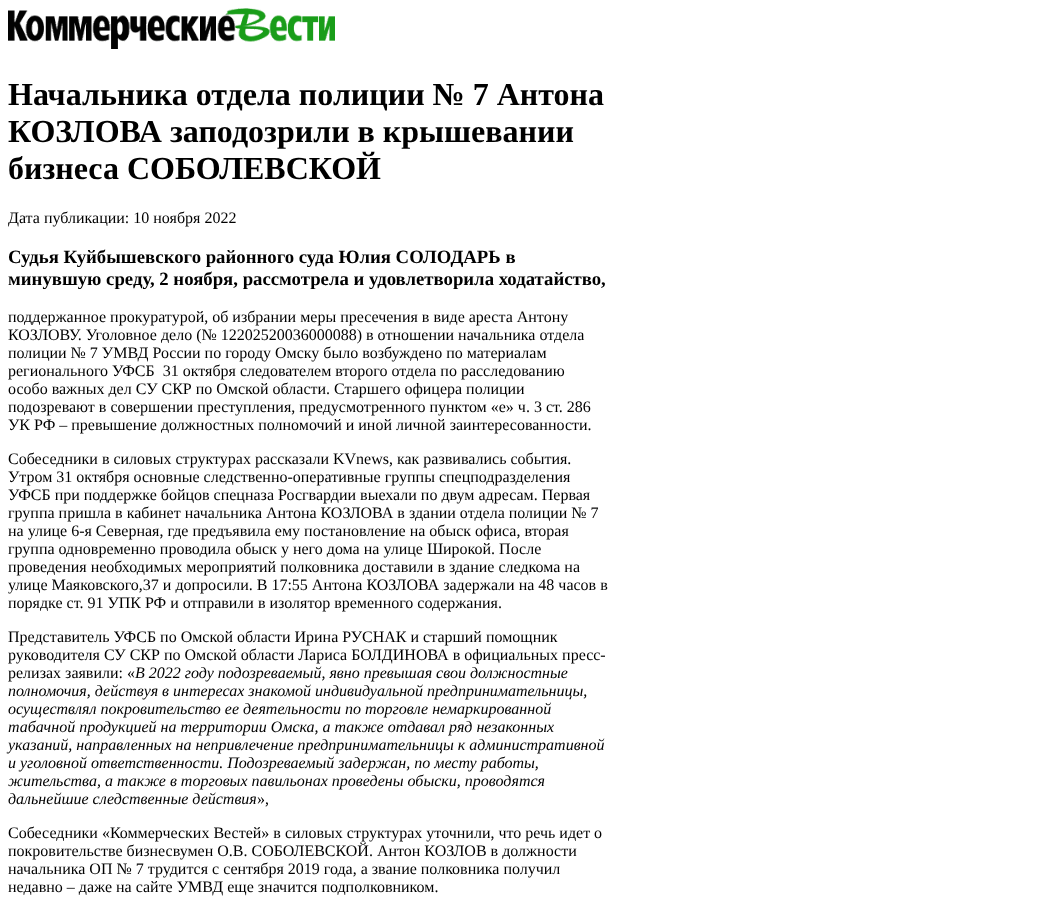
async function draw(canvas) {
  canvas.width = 1042
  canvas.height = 910
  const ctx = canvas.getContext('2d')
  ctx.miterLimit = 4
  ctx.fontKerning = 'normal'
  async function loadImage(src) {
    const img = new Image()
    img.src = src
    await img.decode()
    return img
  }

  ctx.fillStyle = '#fff'
  ctx.fillRect(0, 0, 1042, 910)
  ctx.drawImage(await loadImage('image0.png'), 8, 8, 327, 41)
  ctx.font = 'bold 32px Liberation Serif'
  ctx.fillStyle = '#000'
  ctx.fillText('Начальника отдела полиции № 7 Антона', 8, 105)
  ctx.fillText('КОЗЛОВА заподозрили в крышевании', 8, 142)
  ctx.fillText('бизнеса СОБОЛЕВСКОЙ', 8, 179)
  ctx.font = '16px Liberation Serif'
  ctx.fillText('Дата публикации: 10 ноября 2022', 8, 223)
  ctx.font = 'bold 18.75px Liberation Serif'
  ctx.fillText('Судья Куйбышевского районного суда Юлия СОЛОДАРЬ в', 8, 263)
  ctx.fillText('минувшую среду, 2 ноября, рассмотрела и удовлетворила ходатайство,', 8, 285)
  ctx.font = '16px Liberation Serif'
  ctx.fillText('поддержанное прокуратурой, об избрании меры пресечения в виде ареста Антону', 8, 322)
  ctx.fillText('КОЗЛОВУ. Уголовное дело (№ 12202520036000088) в отношении начальника отдела', 8, 340)
  ctx.fillText('полиции № 7 УМВД России по городу Омску было возбуждено по материалам', 8, 358)
  ctx.fillText('регионального УФСБ  31 октября следователем второго отдела по расследованию', 8, 376)
  ctx.fillText('особо важных дел СУ СКР по Омской области. Старшего офицера полиции', 8, 394)
  ctx.fillText('подозревают в совершении преступления, предусмотренного пунктом «е» ч. 3 ст. 286', 8, 412)
  ctx.fillText('УК РФ – превышение должностных полномочий и иной личной заинтересованности.', 8, 430)
  ctx.fillText('Собеседники в силовых структурах рассказали KVnews, как развивались события.', 8, 464)
  ctx.fillText('Утром 31 октября основные следственно-оперативные группы спецподразделения', 8, 482)
  ctx.fillText('УФСБ при поддержке бойцов спецназа Росгвардии выехали по двум адресам. Первая', 8, 500)
  ctx.fillText('группа пришла в кабинет начальника Антона КОЗЛОВА в здании отдела полиции № 7', 8, 518)
  ctx.fillText('на улице 6-я Северная, где предъявила ему постановление на обыск офиса, вторая', 8, 536)
  ctx.fillText('группа одновременно проводила обыск у него дома на улице Широкой. После', 8, 554)
  ctx.fillText('проведения необходимых мероприятий полковника доставили в здание следкома на', 8, 572)
  ctx.fillText('улице Маяковского,37 и допросили. В 17:55 Антона КОЗЛОВА задержали на 48 часов в', 8, 590)
  ctx.fillText('порядке ст. 91 УПК РФ и отправили в изолятор временного содержания.', 8, 608)
  ctx.fillText('Представитель УФСБ по Омской области Ирина РУСНАК и старший помощник', 8, 642)
  ctx.fillText('руководителя СУ СКР по Омской области Лариса БОЛДИНОВА в официальных пресс-', 8, 660)
  ctx.fillText('релизах заявили: «', 8, 678)
  ctx.font = 'italic 16px Liberation Serif'
  ctx.fillText('В 2022 году подозреваемый, явно превышая свои должностные', 135, 678)
  ctx.fillText('полномочия, действуя в интересах знакомой индивидуальной предпринимательницы,', 8, 696)
  ctx.fillText('осуществлял покровительство ее деятельности по торговле немаркированной', 8, 714)
  ctx.fillText('табачной продукцией на территории Омска, а также отдавал ряд незаконных', 8, 732)
  ctx.fillText('указаний, направленных на непривлечение предпринимательницы к административной', 8, 750)
  ctx.fillText('и уголовной ответственности. Подозреваемый задержан, по месту работы,', 8, 768)
  ctx.fillText('жительства, а также в торговых павильонах проведены обыски, проводятся', 8, 786)
  ctx.fillText('дальнейшие следственные действия', 8, 804)
  ctx.font = '16px Liberation Serif'
  ctx.fillText('»,', 257, 804)
  ctx.fillText('Собеседники «Коммерческих Вестей» в силовых структурах уточнили, что речь идет о', 8, 838)
  ctx.fillText('покровительстве бизнесвумен О.В. СОБОЛЕВСКОЙ. Антон КОЗЛОВ в должности', 8, 856)
  ctx.fillText('начальника ОП № 7 трудится с сентября 2019 года, а звание полковника получил', 8, 874)
  ctx.fillText('недавно – даже на сайте УМВД еще значится подполковником.', 8, 892)
}

draw(document.querySelector('canvas'))
